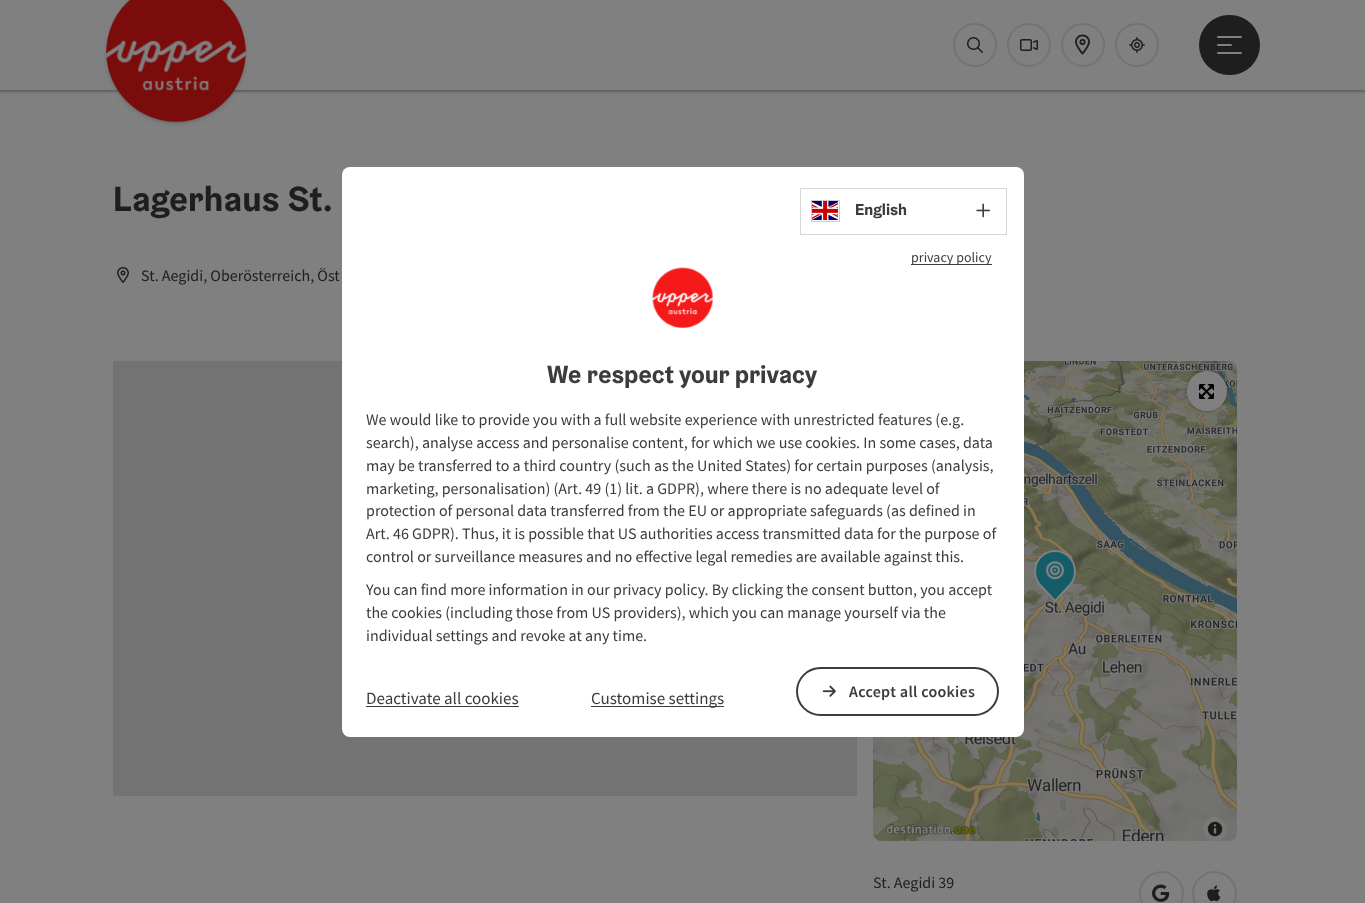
async function draw(canvas) {
  canvas.width = 1365
  canvas.height = 903
  const ctx = canvas.getContext('2d')
  ctx.miterLimit = 4
  ctx.fontKerning = 'normal'
  async function loadImage(src) {
    const img = new Image()
    img.src = src
    await img.decode()
    return img
  }

  ctx.fillStyle = '#808080'
  ctx.fillRect(0, 0, 1365, 903)
  ctx.save()
  ctx.beginPath()
  ctx.rect(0, 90, 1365, 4)
  ctx.clip()
  ctx.fillStyle = '#333'
  ctx.filter = 'blur(2px)'
  ctx.beginPath()
  ctx.rect(-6, 8, 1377, 82)
  ctx.fill()
  ctx.filter = 'none'
  ctx.restore()
  ctx.fillStyle = '#333'
  ctx.filter = 'blur(3px)'
  ctx.beginPath()
  ctx.roundRect(110, -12, 132, 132, 66)
  ctx.fill()
  ctx.filter = 'none'
  ctx.drawImage(await loadImage('image0.png'), 106, 0, 140, 122)
  ctx.beginPath()
  ctx.arc(975, 45, 21, 0, 2 * Math.PI)
  ctx.strokeStyle = '#737373'
  ctx.lineWidth = 2
  ctx.stroke()
  ctx.drawImage(await loadImage('image1.png'), 967, 37, 16, 16)
  ctx.beginPath()
  ctx.arc(1029, 45, 21, 0, 2 * Math.PI)
  ctx.stroke()
  ctx.drawImage(await loadImage('image2.png'), 1020, 39, 18, 12)
  ctx.beginPath()
  ctx.arc(1083, 45, 21, 0, 2 * Math.PI)
  ctx.stroke()
  ctx.drawImage(await loadImage('image3.png'), 1075, 34, 15, 21)
  ctx.beginPath()
  ctx.arc(1137, 45, 21, 0, 2 * Math.PI)
  ctx.stroke()
  ctx.drawImage(await loadImage('image4.png'), 1129, 37, 16, 16)
  ctx.fillStyle = '#1e1e1e'
  ctx.beginPath()
  ctx.roundRect(1199, 15, 61, 60, 30)
  ctx.fill()
  ctx.fillStyle = '#808080'
  ctx.beginPath()
  ctx.roundRect(1217, 36, 25, 2, 1)
  ctx.fill()
  ctx.beginPath()
  ctx.roundRect(1217, 44, 15, 2, 1)
  ctx.fill()
  ctx.beginPath()
  ctx.roundRect(1217, 52, 25, 2, 1)
  ctx.fill()
  ctx.letterSpacing = '0.25px'
  ctx.font = 'bold 35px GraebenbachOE'
  ctx.fillStyle = '#1e1e1e'
  ctx.fillText('Lagerhaus St.', 113, 211)
  ctx.drawImage(await loadImage('image5.png'), 117, 267, 12, 16)
  ctx.letterSpacing = '0px'
  ctx.font = '16px Source Sans Pro'
  ctx.fillText('St. Aegidi, Oberösterreich, Öst', 141, 281)
  ctx.fillStyle = '#737373'
  ctx.fillRect(113, 361, 744, 435)
  ctx.drawImage(await loadImage('image6.png'), 873, 361, 364, 480)
  ctx.drawImage(await loadImage('image7.png'), 1034, 550, 42, 52)
  ctx.drawImage(await loadImage('image8.png'), 1046, 561, 18, 19)
  ctx.beginPath()
  ctx.arc(1207, 391, 21, 0, 2 * Math.PI)
  ctx.strokeStyle = '#0000001a'
  ctx.stroke()
  ctx.fillStyle = '#808080'
  ctx.beginPath()
  ctx.arc(1207, 391, 20, 0, 2 * Math.PI)
  ctx.fill()
  ctx.drawImage(await loadImage('image9.png'), 1199, 384, 15, 15)
  ctx.drawImage(await loadImage('image10.png'), 885, 824, 91, 11)
  ctx.fillStyle = '#80808080'
  ctx.beginPath()
  ctx.arc(1215, 829, 12, 0, 2 * Math.PI)
  ctx.fill()
  ctx.drawImage(await loadImage('image11.png'), 1207, 821, 16, 16)
  ctx.fillStyle = '#1e1e1e'
  ctx.fillText('St. Aegidi 39', 873, 888)
  ctx.beginPath()
  ctx.arc(1161.5, 893.5, 21.5, 0, 2 * Math.PI)
  ctx.strokeStyle = '#737373'
  ctx.stroke()
  ctx.drawImage(await loadImage('image12.png'), 1152, 884, 18, 18)
  ctx.beginPath()
  ctx.arc(1214.5, 893.5, 21.5, 0, 2 * Math.PI)
  ctx.stroke()
  ctx.drawImage(await loadImage('image13.png'), 1207, 885, 14, 17)
  ctx.fillStyle = '#fff'
  ctx.beginPath()
  ctx.roundRect(342, 167, 682, 570, 8)
  ctx.fill()
  ctx.strokeStyle = '#d6d6d6'
  ctx.lineWidth = 1
  ctx.strokeRect(800.5, 188.5, 206, 46)
  ctx.drawImage(await loadImage('image14.png'), 812, 201, 26, 19)
  ctx.strokeStyle = '#ccc'
  ctx.strokeRect(811.5, 200.5, 28, 21)
  ctx.font = 'bold 16px GraebenbachOE'
  ctx.fillStyle = '#3c3c3c'
  ctx.fillText('English', 855, 215)
  ctx.drawImage(await loadImage('image15.png'), 976, 203, 15, 15)
  ctx.fillRect(911, 264, 81, 1)
  ctx.font = '14px Source Sans Pro'
  ctx.fillText('privacy policy', 911, 262)
  ctx.drawImage(await loadImage('image16.png'), 652, 267, 61, 61)
  ctx.font = 'bold 25px GraebenbachOE'
  ctx.fillText('We respect your privacy', 547, 383)
  ctx.font = '16px Source Sans Pro'
  ctx.fillText('We would like to provide you with a full website experience with unrestricted features (e.g.', 366, 425)
  ctx.fillText('search), analyse access and personalise content, for which we use cookies. In some cases, data', 366, 448)
  ctx.fillText('may be transferred to a third country (such as the United States) for certain purposes (analysis,', 366, 471)
  ctx.fillText('marketing, personalisation) (Art. 49 (1) lit. a GDPR), where there is no adequate level of', 366, 494)
  ctx.fillText('protection of personal data transferred from the EU or appropriate safeguards (as defined in', 366, 516)
  ctx.fillText('Art. 46 GDPR). Thus, it is possible that US authorities access transmitted data for the purpose of', 366, 539)
  ctx.fillText('control or surveillance measures and no effective legal remedies are available against this.', 366, 562)
  ctx.fillText('You can find more information in our privacy policy. By clicking the consent button, you accept', 366, 595)
  ctx.fillText('the cookies (including those from US providers), which you can manage yourself via the', 366, 618)
  ctx.fillText('individual settings and revoke at any time.', 366, 641)
  ctx.font = '17px Source Sans Pro'
  ctx.fillText('Deactivate all cookies', 366, 704)
  ctx.fillRect(366, 706, 153, 1)
  ctx.fillRect(591, 706, 133, 1)
  ctx.fillText('Customise settings', 591, 704)
  ctx.beginPath()
  ctx.roundRect(797, 668, 201, 47, 23.5)
  ctx.strokeStyle = '#3c3c3c'
  ctx.lineWidth = 2
  ctx.stroke()
  ctx.drawImage(await loadImage('image17.png'), 822, 685, 14, 12)
  ctx.letterSpacing = '0.25px'
  ctx.font = '600 16px Source Sans Pro'
  ctx.fillText('Accept all cookies', 849, 697)
}

draw(document.querySelector('canvas'))
